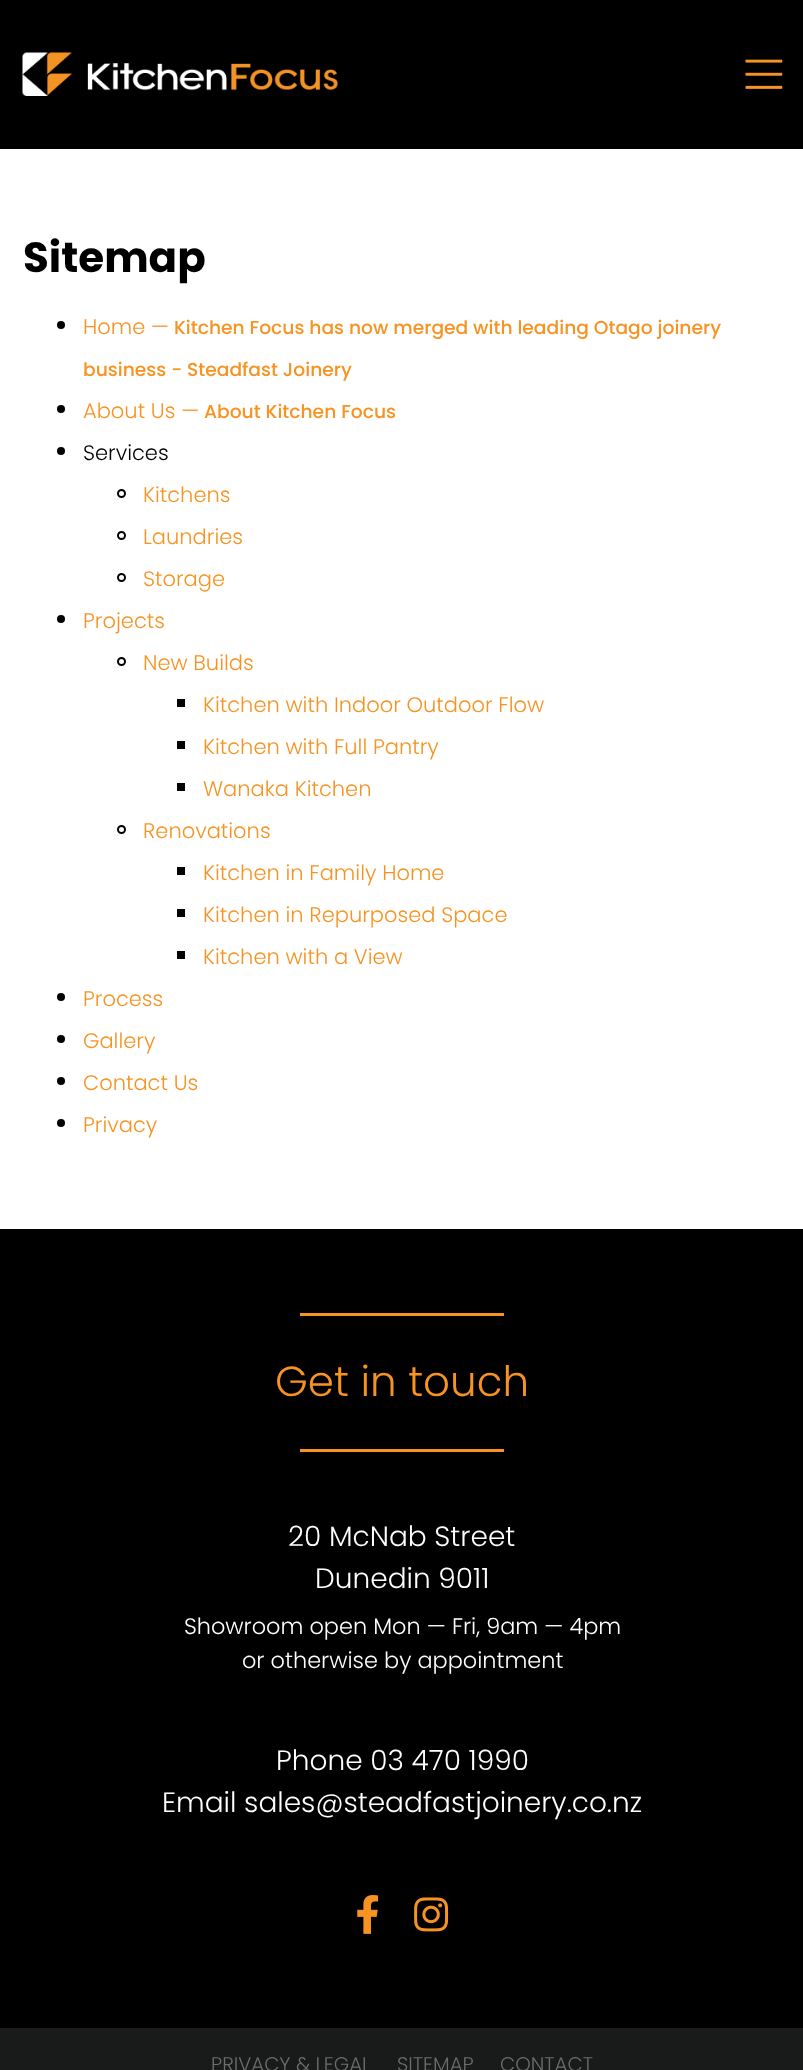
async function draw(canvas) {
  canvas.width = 803
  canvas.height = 2070
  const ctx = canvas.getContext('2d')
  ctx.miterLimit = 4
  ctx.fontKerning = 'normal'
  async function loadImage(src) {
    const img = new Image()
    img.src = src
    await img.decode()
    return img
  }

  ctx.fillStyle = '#fff'
  ctx.fillRect(0, 0, 803, 2070)
  ctx.fillStyle = '#000'
  ctx.fillRect(0, 0, 803, 149)
  ctx.drawImage(await loadImage('image0.png'), 22, 52, 316, 44)
  ctx.drawImage(await loadImage('image1.png'), 745, 59, 38, 30)
  ctx.font = 'bold 42px Poppins'
  ctx.fillText('Sitemap', 23, 272)
  ctx.beginPath()
  ctx.arc(61, 325, 4, 0, 2 * Math.PI)
  ctx.fill()
  ctx.font = '300 21px Poppins'
  ctx.fillStyle = '#f69322'
  ctx.fillText('Home —', 83, 334)
  ctx.font = '500 18.7px Poppins'
  ctx.fillText('Kitchen Focus has now merged with leading Otago joinery', 174, 334)
  ctx.fillText('business - Steadfast Joinery', 83, 376)
  ctx.fillStyle = '#000'
  ctx.beginPath()
  ctx.arc(61, 409, 4, 0, 2 * Math.PI)
  ctx.fill()
  ctx.font = '300 21px Poppins'
  ctx.fillStyle = '#f69322'
  ctx.fillText('About Us —', 83, 418)
  ctx.font = '500 18.7px Poppins'
  ctx.fillText('About Kitchen Focus', 204, 418)
  ctx.fillStyle = '#000'
  ctx.beginPath()
  ctx.arc(61, 451, 4, 0, 2 * Math.PI)
  ctx.fill()
  ctx.font = '300 21px Poppins'
  ctx.fillText('Services', 83, 460)
  ctx.beginPath()
  ctx.arc(121.5, 493.5, 3.5, 0, 2 * Math.PI)
  ctx.strokeStyle = '#000'
  ctx.lineWidth = 2
  ctx.stroke()
  ctx.fillStyle = '#f69322'
  ctx.fillText('Kitchens', 143, 502)
  ctx.beginPath()
  ctx.arc(121.5, 535.5, 3.5, 0, 2 * Math.PI)
  ctx.stroke()
  ctx.fillText('Laundries', 143, 544)
  ctx.beginPath()
  ctx.arc(121.5, 577.5, 3.5, 0, 2 * Math.PI)
  ctx.stroke()
  ctx.fillText('Storage', 143, 586)
  ctx.fillStyle = '#000'
  ctx.beginPath()
  ctx.arc(61, 619, 4, 0, 2 * Math.PI)
  ctx.fill()
  ctx.fillStyle = '#f69322'
  ctx.fillText('Projects', 83, 628)
  ctx.beginPath()
  ctx.arc(121.5, 661.5, 3.5, 0, 2 * Math.PI)
  ctx.stroke()
  ctx.fillText('New Builds', 143, 670)
  ctx.fillStyle = '#000'
  ctx.fillRect(177, 699, 8, 8)
  ctx.fillStyle = '#f69322'
  ctx.fillText('Kitchen with Indoor Outdoor Flow', 203, 712)
  ctx.fillStyle = '#000'
  ctx.fillRect(177, 741, 8, 8)
  ctx.fillStyle = '#f69322'
  ctx.fillText('Kitchen with Full Pantry', 203, 754)
  ctx.fillStyle = '#000'
  ctx.fillRect(177, 783, 8, 8)
  ctx.fillStyle = '#f69322'
  ctx.fillText('Wanaka Kitchen', 203, 796)
  ctx.beginPath()
  ctx.arc(121.5, 829.5, 3.5, 0, 2 * Math.PI)
  ctx.stroke()
  ctx.fillText('Renovations', 143, 838)
  ctx.fillStyle = '#000'
  ctx.fillRect(177, 867, 8, 8)
  ctx.fillStyle = '#f69322'
  ctx.fillText('Kitchen in Family Home', 203, 880)
  ctx.fillStyle = '#000'
  ctx.fillRect(177, 909, 8, 8)
  ctx.fillStyle = '#f69322'
  ctx.fillText('Kitchen in Repurposed Space', 203, 922)
  ctx.fillStyle = '#000'
  ctx.fillRect(177, 951, 8, 8)
  ctx.fillStyle = '#f69322'
  ctx.fillText('Kitchen with a View', 203, 964)
  ctx.fillStyle = '#000'
  ctx.beginPath()
  ctx.arc(61, 997, 4, 0, 2 * Math.PI)
  ctx.fill()
  ctx.fillStyle = '#f69322'
  ctx.fillText('Process', 83, 1006)
  ctx.fillStyle = '#000'
  ctx.beginPath()
  ctx.arc(61, 1039, 4, 0, 2 * Math.PI)
  ctx.fill()
  ctx.fillStyle = '#f69322'
  ctx.fillText('Gallery', 83, 1048)
  ctx.fillStyle = '#000'
  ctx.beginPath()
  ctx.arc(61, 1081, 4, 0, 2 * Math.PI)
  ctx.fill()
  ctx.fillStyle = '#f69322'
  ctx.fillText('Contact Us', 83, 1090)
  ctx.fillStyle = '#000'
  ctx.beginPath()
  ctx.arc(61, 1123, 4, 0, 2 * Math.PI)
  ctx.fill()
  ctx.fillStyle = '#f69322'
  ctx.fillText('Privacy', 83, 1132)
  ctx.fillStyle = '#000'
  ctx.fillRect(0, 1229, 803, 799)
  ctx.fillStyle = '#f69322'
  ctx.fillRect(300, 1313, 204, 3)
  ctx.font = '300 42px Poppins'
  ctx.fillText('Get in touch', 275, 1396)
  ctx.fillRect(300, 1449, 204, 3)
  ctx.font = '300 28px Poppins'
  ctx.fillStyle = '#fff'
  ctx.fillText('20 McNab Street', 288, 1546)
  ctx.fillText('Dunedin 9011', 315, 1588)
  ctx.font = '300 22.4px Poppins'
  ctx.fillText('Showroom open Mon — Fri, 9am — 4pm', 184, 1634)
  ctx.fillText('or otherwise by appointment', 242, 1668)
  ctx.font = '300 28px Poppins'
  ctx.fillText('Phone 03 470 1990', 276, 1770)
  ctx.fillText('Email sales@steadfastjoinery.co.nz', 162, 1812)
  ctx.drawImage(await loadImage('image2.png'), 357, 1895, 22, 39)
  ctx.drawImage(await loadImage('image3.png'), 414, 1897, 35, 35)
  ctx.fillStyle = '#191a1a'
  ctx.fillRect(0, 2028, 803, 42)
  ctx.font = '300 19.75px Poppins'
  ctx.fillStyle = '#6c6c6c'
  ctx.fillText('PRIVACY & LEGAL', 211, 2071)
  ctx.fillText('SITEMAP', 397, 2071)
  ctx.fillText('CONTACT', 500, 2071)
}

draw(document.querySelector('canvas'))
